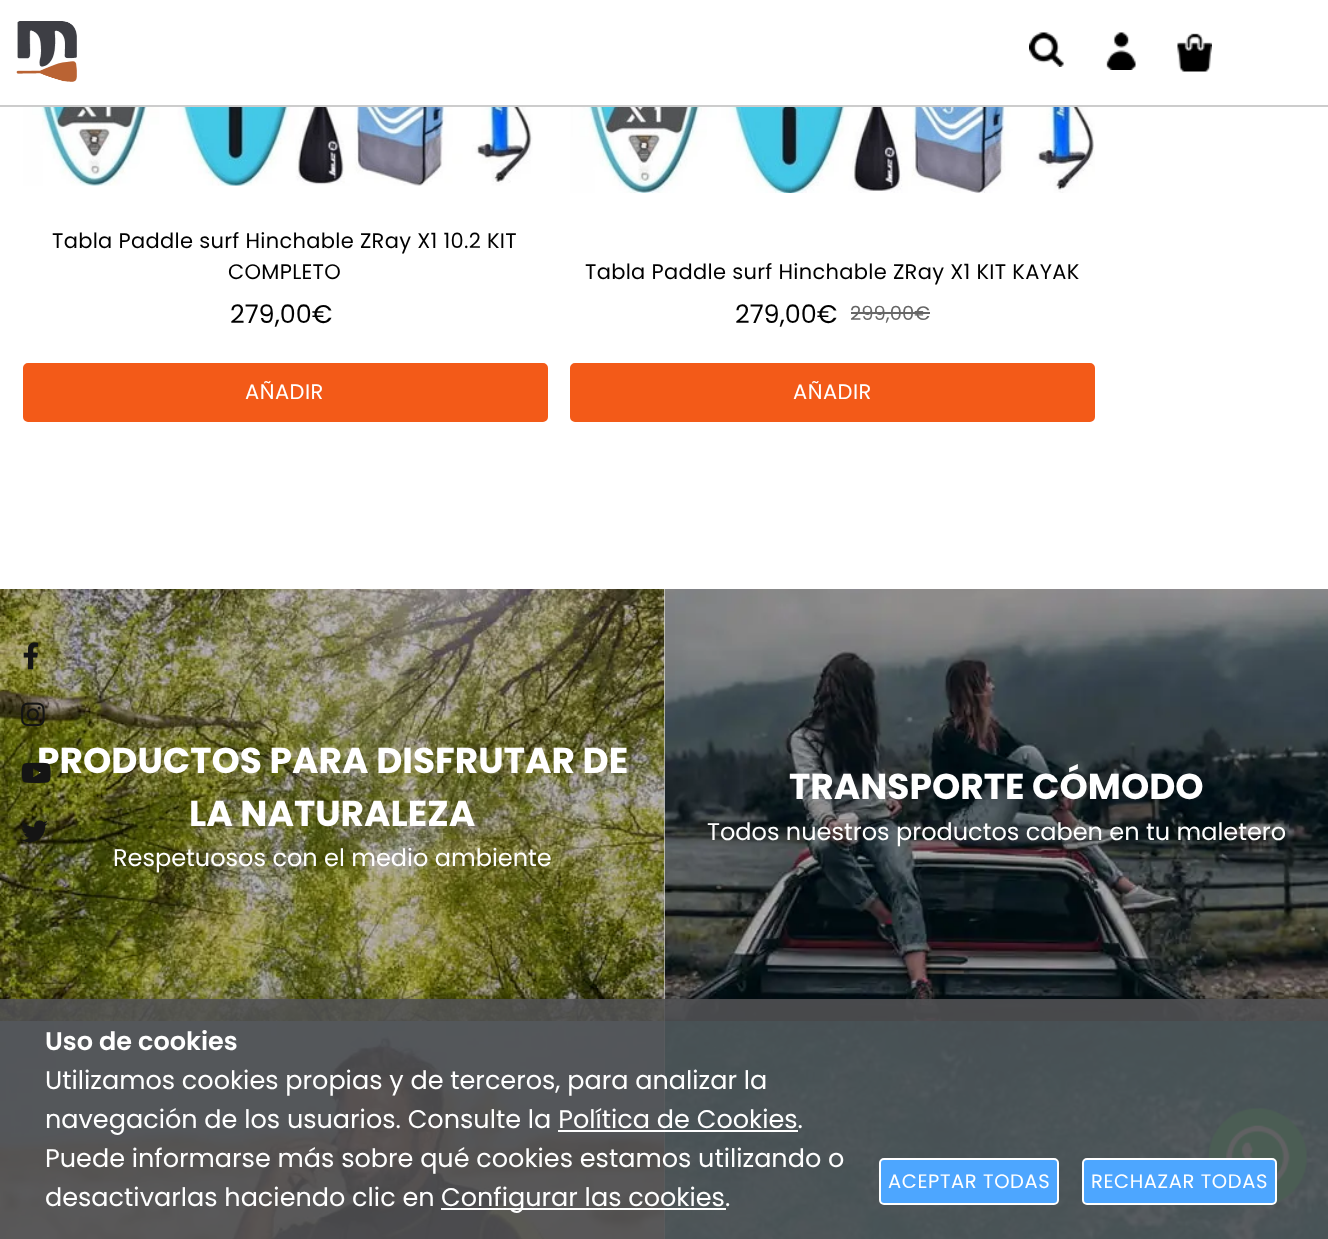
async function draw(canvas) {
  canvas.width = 1328
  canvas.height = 1239
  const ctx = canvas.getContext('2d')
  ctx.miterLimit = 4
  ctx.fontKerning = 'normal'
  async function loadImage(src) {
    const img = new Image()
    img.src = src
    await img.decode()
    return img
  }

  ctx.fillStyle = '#fff'
  ctx.fillRect(0, 0, 1328, 1239)
  ctx.fillStyle = '#ccc'
  ctx.fillRect(0, 105, 1328, 2)
  ctx.drawImage(await loadImage('image0.png'), 16, 21, 61, 61)
  ctx.drawImage(await loadImage('image1.png'), 1029, 32, 35, 35)
  ctx.drawImage(await loadImage('image2.png'), 1106, 32, 30, 38)
  ctx.drawImage(await loadImage('image3.png'), 1177, 33, 35, 39)
  ctx.drawImage(await loadImage('image4.png'), 23, 107, 510, 79)
  ctx.letterSpacing = '0.3px'
  ctx.font = '21px Poppins'
  ctx.fillStyle = '#000'
  ctx.fillText('Tabla Paddle surf Hinchable ZRay X1 10.2 KIT', 52, 248)
  ctx.fillText('COMPLETO', 228, 279)
  ctx.letterSpacing = '0px'
  ctx.font = '25.5px Poppins'
  ctx.fillText('279,00€', 230, 323)
  ctx.fillStyle = '#f35a18'
  ctx.beginPath()
  ctx.roundRect(24, 364, 523, 57, 4)
  ctx.fill()
  ctx.strokeStyle = '#f35a18'
  ctx.lineWidth = 2
  ctx.stroke()
  ctx.letterSpacing = '0.5px'
  ctx.font = '21px Poppins'
  ctx.fillStyle = '#fff'
  ctx.fillText('AÑADIR', 245, 399)
  ctx.drawImage(await loadImage('image5.png'), 570, 107, 525, 86)
  ctx.letterSpacing = '0.3px'
  ctx.fillStyle = '#000'
  ctx.fillText('Tabla Paddle surf Hinchable ZRay X1 KIT KAYAK', 585, 279)
  ctx.letterSpacing = '0px'
  ctx.font = '25.5px Poppins'
  ctx.fillText('279,00€', 735, 323)
  ctx.font = '19.5px Poppins'
  ctx.fillStyle = '#666'
  ctx.fillText('299,00€', 850, 320)
  ctx.fillRect(851, 312, 79, 2)
  ctx.fillStyle = '#f35a18'
  ctx.beginPath()
  ctx.roundRect(571, 364, 523, 57, 4)
  ctx.fill()
  ctx.stroke()
  ctx.letterSpacing = '0.5px'
  ctx.font = '21px Poppins'
  ctx.fillStyle = '#fff'
  ctx.fillText('AÑADIR', 793, 399)
  ctx.drawImage(await loadImage('image11.png'), 0, 589, 665, 432)
  ctx.drawImage(await loadImage('image6.png'), 23, 642, 16, 28)
  ctx.drawImage(await loadImage('image7.png'), 21, 702, 24, 25)
  ctx.letterSpacing = '0px'
  ctx.font = 'bold 36px Poppins'
  ctx.fillText('PRODUCTOS PARA DISFRUTAR DE', 37, 773)
  ctx.drawImage(await loadImage('image8.png'), 21, 762, 30, 21)
  ctx.drawImage(await loadImage('image9.png'), 22, 820, 26, 23)
  ctx.drawImage(await loadImage('image13.png'), 0, 1021, 665, 218)
  ctx.drawImage(await loadImage('image14.png'), 664, 1021, 664, 218)
  ctx.drawImage(await loadImage('image10.png'), 1209, 1108, 98, 98)
  ctx.fillText('LA NATURALEZA', 189, 826)
  ctx.font = '24px Poppins'
  ctx.fillText('Respetuosos con el medio ambiente', 113, 866)
  ctx.drawImage(await loadImage('image12.png'), 664, 589, 664, 432)
  ctx.font = 'bold 36px Poppins'
  ctx.fillText('TRANSPORTE CÓMODO', 789, 799)
  ctx.font = '24px Poppins'
  ctx.fillText('Todos nuestros productos caben en tu maletero', 707, 840)
  ctx.save()
  ctx.beginPath()
  ctx.rect(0, 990, 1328, 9)
  ctx.clip()
  ctx.fillStyle = '#0000004d'
  ctx.filter = 'blur(6px)'
  ctx.beginPath()
  ctx.rect(0, 999, 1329, 240)
  ctx.fill()
  ctx.filter = 'none'
  ctx.restore()
  ctx.fillStyle = '#505052e6'
  ctx.fillRect(0, 999, 1328, 240)
  ctx.font = '600 25.5px Poppins'
  ctx.fillStyle = '#fff'
  ctx.fillText('Uso de cookies', 45, 1050)
  ctx.font = '25.5px Poppins'
  ctx.fillText('Utilizamos cookies propias y de terceros, para analizar la', 45, 1089)
  ctx.fillText('navegación de los usuarios. Consulte la Política de Cookies.', 45, 1128)
  ctx.fillRect(558, 1130, 240, 2)
  ctx.fillText('Puede informarse más sobre qué cookies estamos utilizando o', 45, 1167)
  ctx.fillText('desactivarlas haciendo clic en', 45, 1206)
  ctx.fillRect(441, 1208, 285, 2)
  ctx.fillText('Configurar las cookies.', 441, 1206)
  ctx.fillStyle = '#4da6ff'
  ctx.beginPath()
  ctx.roundRect(880, 1159, 178, 45, 4)
  ctx.fill()
  ctx.strokeStyle = '#fff'
  ctx.stroke()
  ctx.letterSpacing = '0.6px'
  ctx.font = '19.5px Poppins'
  ctx.fillStyle = '#fff'
  ctx.fillText('ACEPTAR TODAS', 888, 1188)
  ctx.fillStyle = '#4da6ff'
  ctx.beginPath()
  ctx.roundRect(1083, 1159, 193, 45, 4)
  ctx.fill()
  ctx.stroke()
  ctx.fillStyle = '#fff'
  ctx.fillText('RECHAZAR TODAS', 1091, 1188)
}

draw(document.querySelector('canvas'))
